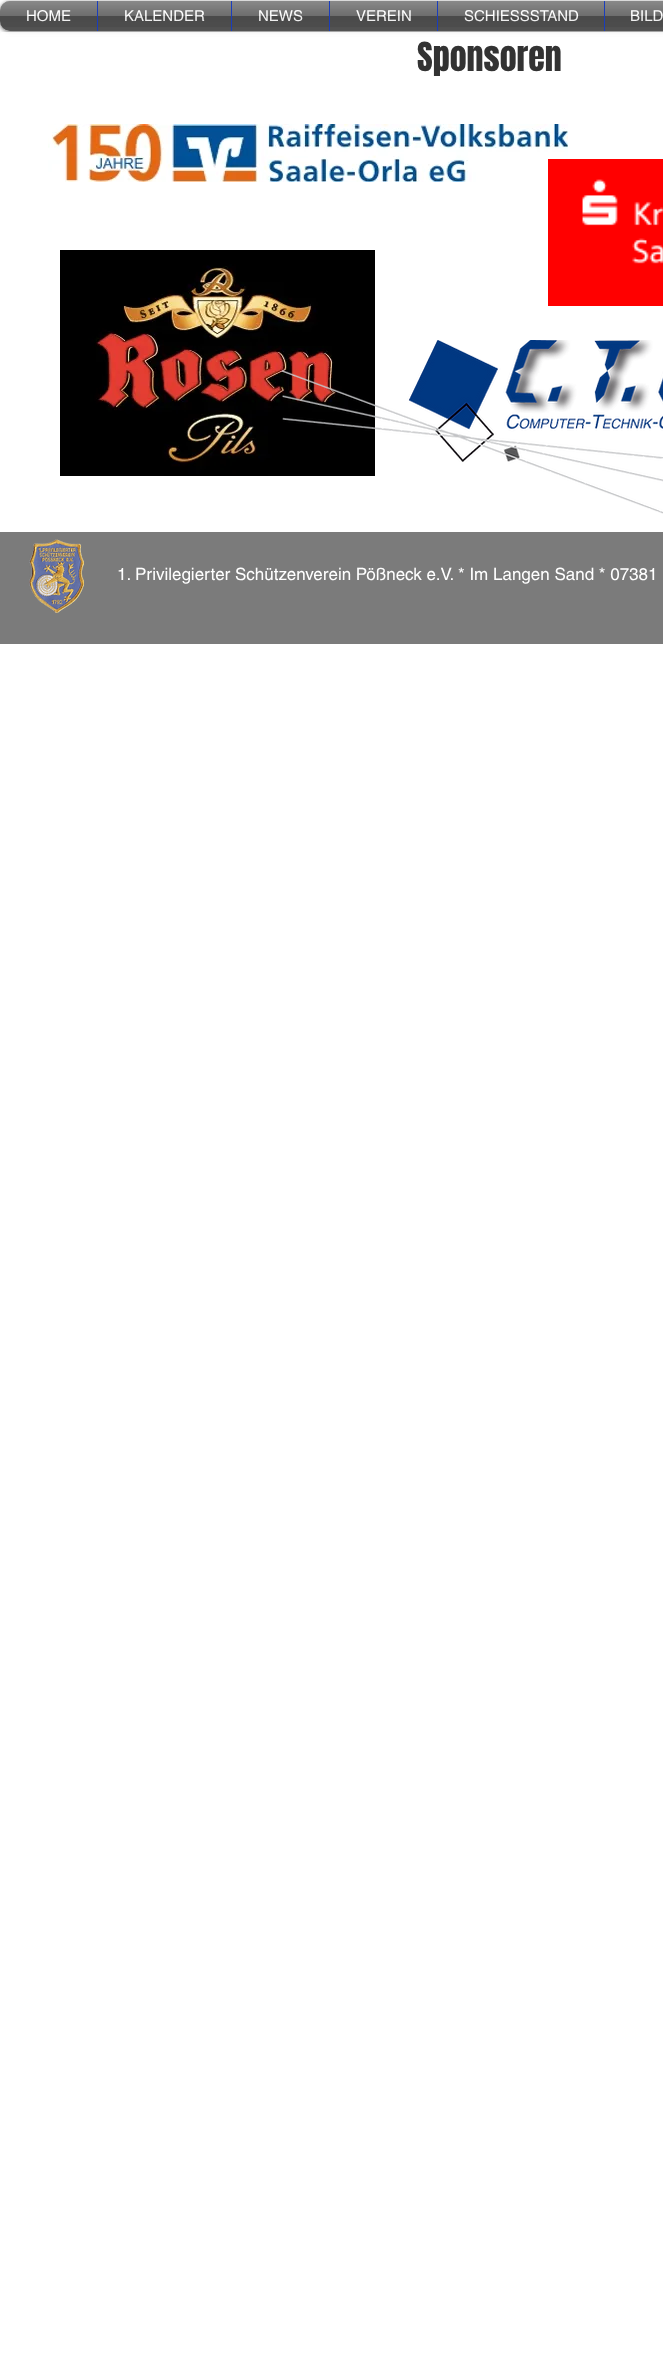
async function draw(canvas) {
  canvas.width = 663
  canvas.height = 2369
  const ctx = canvas.getContext('2d')
  ctx.miterLimit = 4
  ctx.fontKerning = 'normal'
  async function loadImage(src) {
    const img = new Image()
    img.src = src
    await img.decode()
    return img
  }

  ctx.fillStyle = '#fff'
  ctx.fillRect(0, 0, 663, 2369)
  ctx.save()
  ctx.beginPath()
  ctx.moveTo(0, 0)
  ctx.lineTo(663, 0)
  ctx.lineTo(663, 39)
  ctx.lineTo(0, 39)
  ctx.closePath()
  ctx.moveTo(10, 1)
  ctx.lineTo(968, 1)
  ctx.bezierCurveTo(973.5, 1, 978, 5.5, 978, 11)
  ctx.lineTo(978, 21)
  ctx.bezierCurveTo(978, 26.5, 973.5, 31, 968, 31)
  ctx.lineTo(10, 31)
  ctx.bezierCurveTo(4.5, 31, 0, 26.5, 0, 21)
  ctx.lineTo(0, 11)
  ctx.bezierCurveTo(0, 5.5, 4.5, 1, 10, 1)
  ctx.closePath()
  ctx.clip('evenodd')
  ctx.fillStyle = '#00000099'
  ctx.filter = 'blur(2px)'
  ctx.beginPath()
  ctx.roundRect(0, 2, 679, 30, 10)
  ctx.fill()
  ctx.filter = 'none'
  ctx.restore()
  ctx.fillStyle = '#33333399'
  ctx.beginPath()
  ctx.roundRect(0, 1, 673, 30, 10)
  ctx.fill()
  ctx.drawImage(await loadImage('image0.png'), 0, 1, 663, 30)
  ctx.beginPath()
  ctx.roundRect(0, 1, 97, 30, [10, 0, 0, 10])
  ctx.fill()
  ctx.font = '15px helvetica'
  ctx.fillStyle = '#fff'
  ctx.fillText('HOME', 26, 21)
  ctx.drawImage(await loadImage('image1.png'), 0, 1, 97, 26)
  ctx.fillStyle = '#33333399'
  ctx.fillRect(98, 1, 133, 30)
  ctx.fillStyle = '#1a3dbc'
  ctx.fillRect(97, 1, 1, 30)
  ctx.fillStyle = '#fff'
  ctx.fillText('KALENDER', 124, 21)
  ctx.drawImage(await loadImage('image2.png'), 98, 1, 133, 26)
  ctx.fillStyle = '#33333399'
  ctx.fillRect(232, 1, 97, 30)
  ctx.fillStyle = '#1a3dbc'
  ctx.fillRect(231, 1, 1, 30)
  ctx.fillStyle = '#fff'
  ctx.fillText('NEWS', 258, 21)
  ctx.drawImage(await loadImage('image3.png'), 232, 1, 97, 26)
  ctx.fillStyle = '#33333399'
  ctx.fillRect(330, 1, 107, 30)
  ctx.fillStyle = '#1a3dbc'
  ctx.fillRect(329, 1, 1, 30)
  ctx.fillStyle = '#fff'
  ctx.fillText('VEREIN', 356, 21)
  ctx.drawImage(await loadImage('image4.png'), 330, 1, 107, 26)
  ctx.fillStyle = '#33333399'
  ctx.fillRect(438, 1, 166, 30)
  ctx.fillStyle = '#1a3dbc'
  ctx.fillRect(437, 1, 1, 30)
  ctx.fillStyle = '#fff'
  ctx.fillText('SCHIESSSTAND', 464, 21)
  ctx.drawImage(await loadImage('image5.png'), 438, 1, 166, 26)
  ctx.fillStyle = '#33333399'
  ctx.fillRect(605, 1, 58, 30)
  ctx.fillStyle = '#1a3dbc'
  ctx.fillRect(604, 1, 1, 30)
  ctx.fillStyle = '#fff'
  ctx.fillText('BILD', 630, 21)
  ctx.drawImage(await loadImage('image6.png'), 605, 1, 58, 26)
  ctx.fillStyle = '#ffffffd9'
  ctx.fillRect(1, 32, 662, 4)
  ctx.font = '34px Anton'
  ctx.fillStyle = '#333'
  ctx.fillText('Sponsoren', 417, 71)
  ctx.drawImage(await loadImage('image7.png'), 48, 124, 520, 58)
  ctx.drawImage(await loadImage('image8.png'), 548, 159, 115, 147)
  ctx.drawImage(await loadImage('image9.png'), 60, 250, 315, 226)
  ctx.drawImage(await loadImage('image10.png'), 282, 340, 381, 174)
  ctx.fillStyle = '#7b7b7b'
  ctx.fillRect(0, 532, 663, 112)
  ctx.drawImage(await loadImage('image11.png'), 29, 539, 55, 74)
  ctx.font = '17px helvetica'
  ctx.fillStyle = '#fff'
  ctx.fillText('1. Privilegierter Schützenverein Pößneck e.V. * Im Langen Sand * 07381', 117, 580)
}

draw(document.querySelector('canvas'))
